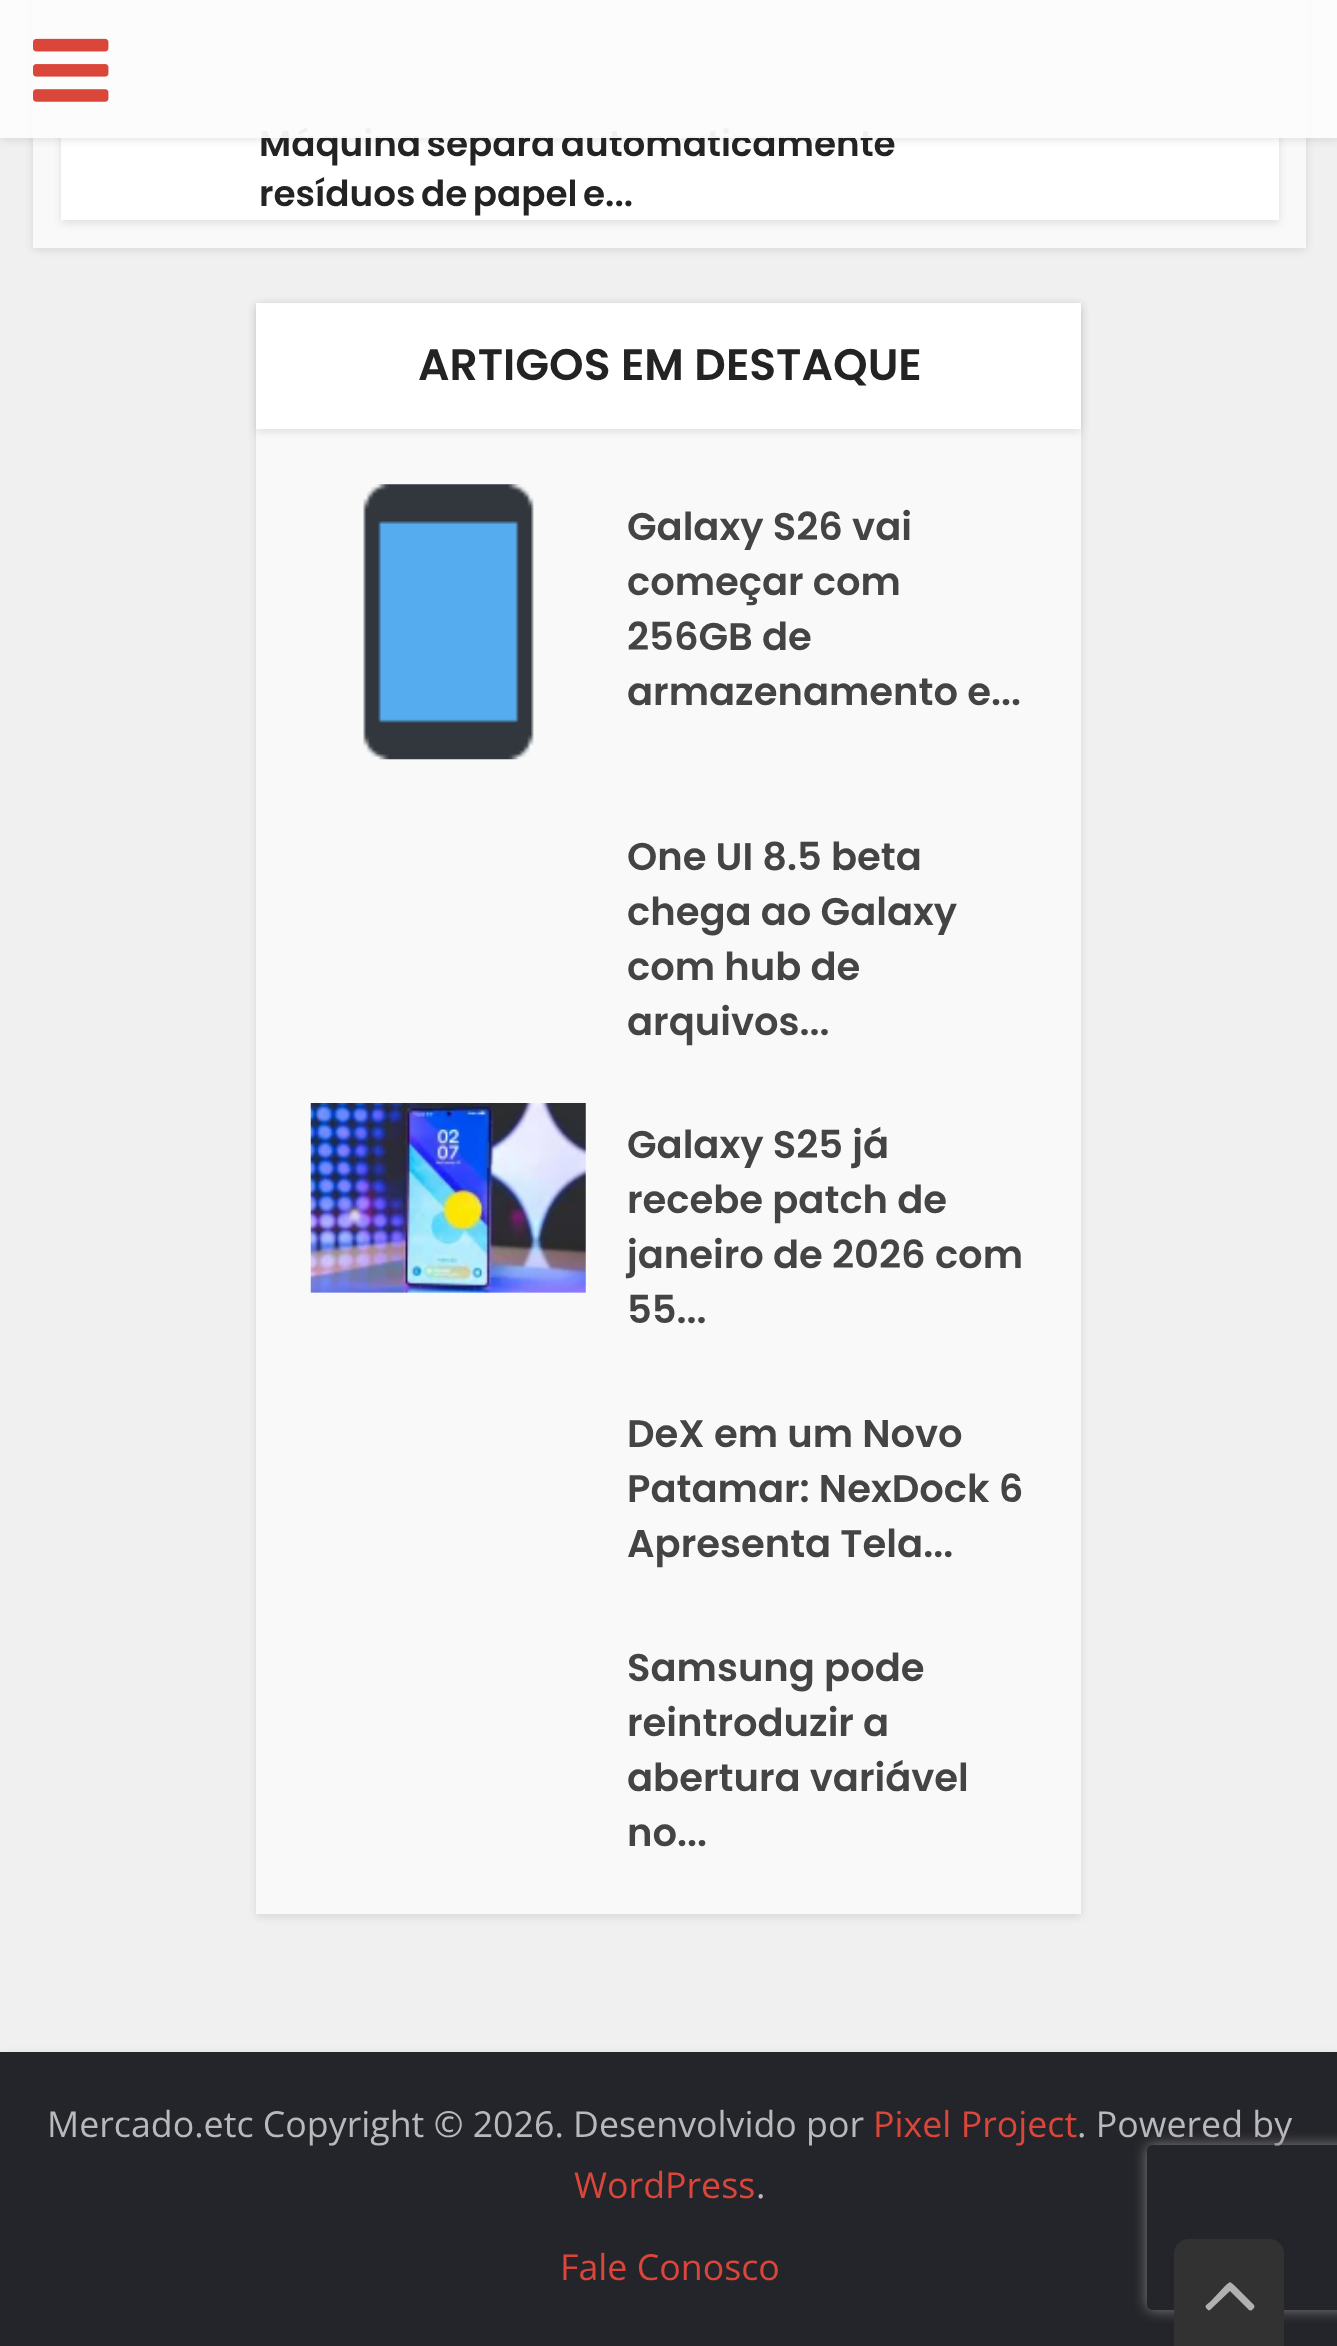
async function draw(canvas) {
  canvas.width = 1337
  canvas.height = 2346
  const ctx = canvas.getContext('2d')
  ctx.miterLimit = 4
  ctx.fontKerning = 'normal'
  async function loadImage(src) {
    const img = new Image()
    img.src = src
    await img.decode()
    return img
  }

  ctx.fillStyle = '#f0f0f0'
  ctx.fillRect(0, 0, 1337, 2346)
  ctx.fillStyle = '#0000001a'
  ctx.filter = 'blur(4px)'
  ctx.beginPath()
  ctx.rect(33, -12, 1273, 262)
  ctx.fill()
  ctx.filter = 'none'
  ctx.fillStyle = '#f9f9f9'
  ctx.fillRect(33, 0, 1273, 248)
  ctx.fillStyle = '#0000001a'
  ctx.filter = 'blur(4px)'
  ctx.beginPath()
  ctx.rect(61, -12, 1218, 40)
  ctx.fill()
  ctx.filter = 'none'
  ctx.fillStyle = '#fff'
  ctx.fillRect(61, 0, 1218, 25)
  ctx.fillStyle = '#0000001a'
  ctx.filter = 'blur(4px)'
  ctx.beginPath()
  ctx.rect(61, 55, 1218, 168)
  ctx.fill()
  ctx.filter = 'none'
  ctx.fillStyle = '#fff'
  ctx.fillRect(61, 52, 1218, 168)
  ctx.save()
  ctx.beginPath()
  ctx.moveTo(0, 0)
  ctx.lineTo(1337, 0)
  ctx.lineTo(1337, 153)
  ctx.lineTo(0, 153)
  ctx.closePath()
  ctx.moveTo(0, 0)
  ctx.lineTo(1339, 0)
  ctx.lineTo(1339, 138)
  ctx.lineTo(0, 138)
  ctx.closePath()
  ctx.clip('evenodd')
  ctx.fillStyle = '#0000001a'
  ctx.filter = 'blur(4px)'
  ctx.beginPath()
  ctx.rect(0, 3, 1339, 137)
  ctx.fill()
  ctx.filter = 'none'
  ctx.restore()
  ctx.wordSpacing = '-3px'
  ctx.font = '600 35.75px Poppins'
  ctx.fillStyle = '#232323'
  ctx.fillText('Máquina separa automaticamente', 259, 156)
  ctx.fillStyle = '#fcfcfcf2'
  ctx.fillRect(0, 0, 1337, 138)
  ctx.drawImage(await loadImage('image0.png'), 33, 38, 76, 64)
  ctx.fillStyle = '#232323'
  ctx.fillText('resíduos de papel e...', 259, 206)
  ctx.fillStyle = '#0000001a'
  ctx.filter = 'blur(4px)'
  ctx.beginPath()
  ctx.rect(256, 305, 825, 1612)
  ctx.fill()
  ctx.filter = 'none'
  ctx.fillStyle = '#f9f9f9'
  ctx.fillRect(256, 429, 825, 1485)
  ctx.fillStyle = '#0000001a'
  ctx.filter = 'blur(4px)'
  ctx.beginPath()
  ctx.rect(256, 305, 825, 127)
  ctx.fill()
  ctx.filter = 'none'
  ctx.fillStyle = '#fff'
  ctx.fillRect(256, 303, 825, 126)
  ctx.wordSpacing = '0px'
  ctx.font = '600 44px Poppins'
  ctx.fillStyle = '#232323'
  ctx.fillText('ARTIGOS EM DESTAQUE', 418, 380)
  ctx.drawImage(await loadImage('image1.png'), 363, 484, 171, 276)
  ctx.font = '600 38.5px Poppins'
  ctx.fillStyle = '#444'
  ctx.fillText('Galaxy S26 vai', 627, 540)
  ctx.fillText('começar com', 627, 595)
  ctx.fillText('256GB de', 627, 650)
  ctx.fillText('armazenamento e...', 627, 705)
  ctx.fillText('One UI 8.5 beta', 627, 870)
  ctx.fillText('chega ao Galaxy', 627, 925)
  ctx.fillText('com hub de', 627, 980)
  ctx.fillText('arquivos...', 627, 1035)
  ctx.drawImage(await loadImage('image2.png'), 310, 1103, 276, 190)
  ctx.fillText('Galaxy S25 já', 627, 1158)
  ctx.fillText('recebe patch de', 627, 1213)
  ctx.fillText('janeiro de 2026 com', 627, 1268)
  ctx.fillText('55...', 627, 1323)
  ctx.fillText('DeX em um Novo', 627, 1447)
  ctx.fillText('Patamar: NexDock 6', 627, 1502)
  ctx.fillText('Apresenta Tela...', 627, 1557)
  ctx.fillText('Samsung pode', 627, 1681)
  ctx.fillText('reintroduzir a', 627, 1736)
  ctx.fillText('abertura variável', 627, 1791)
  ctx.fillText('no...', 627, 1846)
  ctx.fillStyle = '#00000033'
  ctx.filter = 'blur(5.5px)'
  ctx.beginPath()
  ctx.rect(0, 2057, 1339, 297)
  ctx.fill()
  ctx.filter = 'none'
  ctx.fillStyle = '#24252a'
  ctx.fillRect(0, 2052, 1337, 294)
  ctx.font = '35.75px Open Sans'
  ctx.fillStyle = '#b9b9bb'
  ctx.fillText('Mercado.etc Copyright © 2026. Desenvolvido por', 47, 2137)
  ctx.fillStyle = '#da463a'
  ctx.fillText('Pixel Project', 873, 2137)
  ctx.fillStyle = '#b9b9bb'
  ctx.fillText('. Powered by', 1077, 2137)
  ctx.fillStyle = '#da463a'
  ctx.fillText('WordPress', 574, 2198)
  ctx.fillStyle = '#b9b9bb'
  ctx.fillText('.', 756, 2198)
  ctx.fillStyle = '#da463a'
  ctx.fillText('Fale Conosco', 560, 2280)
  ctx.save()
  ctx.beginPath()
  ctx.moveTo(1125, 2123)
  ctx.lineTo(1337, 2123)
  ctx.lineTo(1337, 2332)
  ctx.lineTo(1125, 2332)
  ctx.closePath()
  ctx.moveTo(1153, 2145)
  ctx.lineTo(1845, 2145)
  ctx.bezierCurveTo(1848.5, 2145, 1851, 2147.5, 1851, 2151)
  ctx.lineTo(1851, 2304)
  ctx.bezierCurveTo(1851, 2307.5, 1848.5, 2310, 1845, 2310)
  ctx.lineTo(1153, 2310)
  ctx.bezierCurveTo(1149.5, 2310, 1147, 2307.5, 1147, 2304)
  ctx.lineTo(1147, 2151)
  ctx.bezierCurveTo(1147, 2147.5, 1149.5, 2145, 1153, 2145)
  ctx.closePath()
  ctx.clip('evenodd')
  ctx.fillStyle = '#808080'
  ctx.filter = 'blur(7px)'
  ctx.beginPath()
  ctx.roundRect(1147, 2145, 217, 165, 6)
  ctx.fill()
  ctx.filter = 'none'
  ctx.restore()
  ctx.fillStyle = '#323232'
  ctx.beginPath()
  ctx.moveTo(1188, 2239)
  ctx.lineTo(1270, 2239)
  ctx.bezierCurveTo(1277.5, 2239, 1284, 2245.5, 1284, 2253)
  ctx.lineTo(1284, 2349)
  ctx.lineTo(1174, 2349)
  ctx.lineTo(1174, 2253)
  ctx.bezierCurveTo(1174, 2245.5, 1180.5, 2239, 1188, 2239)
  ctx.closePath()
  ctx.fill()
  ctx.fillStyle = '#b1b1b1'
  ctx.beginPath()
  ctx.moveTo(1254, 2305)
  ctx.bezierCurveTo(1255, 2307, 1254, 2308, 1253, 2309)
  ctx.bezierCurveTo(1250, 2312, 1249, 2310, 1246, 2307)
  ctx.lineTo(1230, 2291)
  ctx.lineTo(1210, 2310)
  ctx.bezierCurveTo(1209, 2311, 1208, 2310, 1207, 2309)
  ctx.bezierCurveTo(1204, 2306, 1206, 2305, 1210, 2302)
  ctx.lineTo(1225, 2286)
  ctx.bezierCurveTo(1231, 2281, 1229, 2281, 1235, 2286)
  ctx.closePath()
  ctx.fill()
}

draw(document.querySelector('canvas'))
